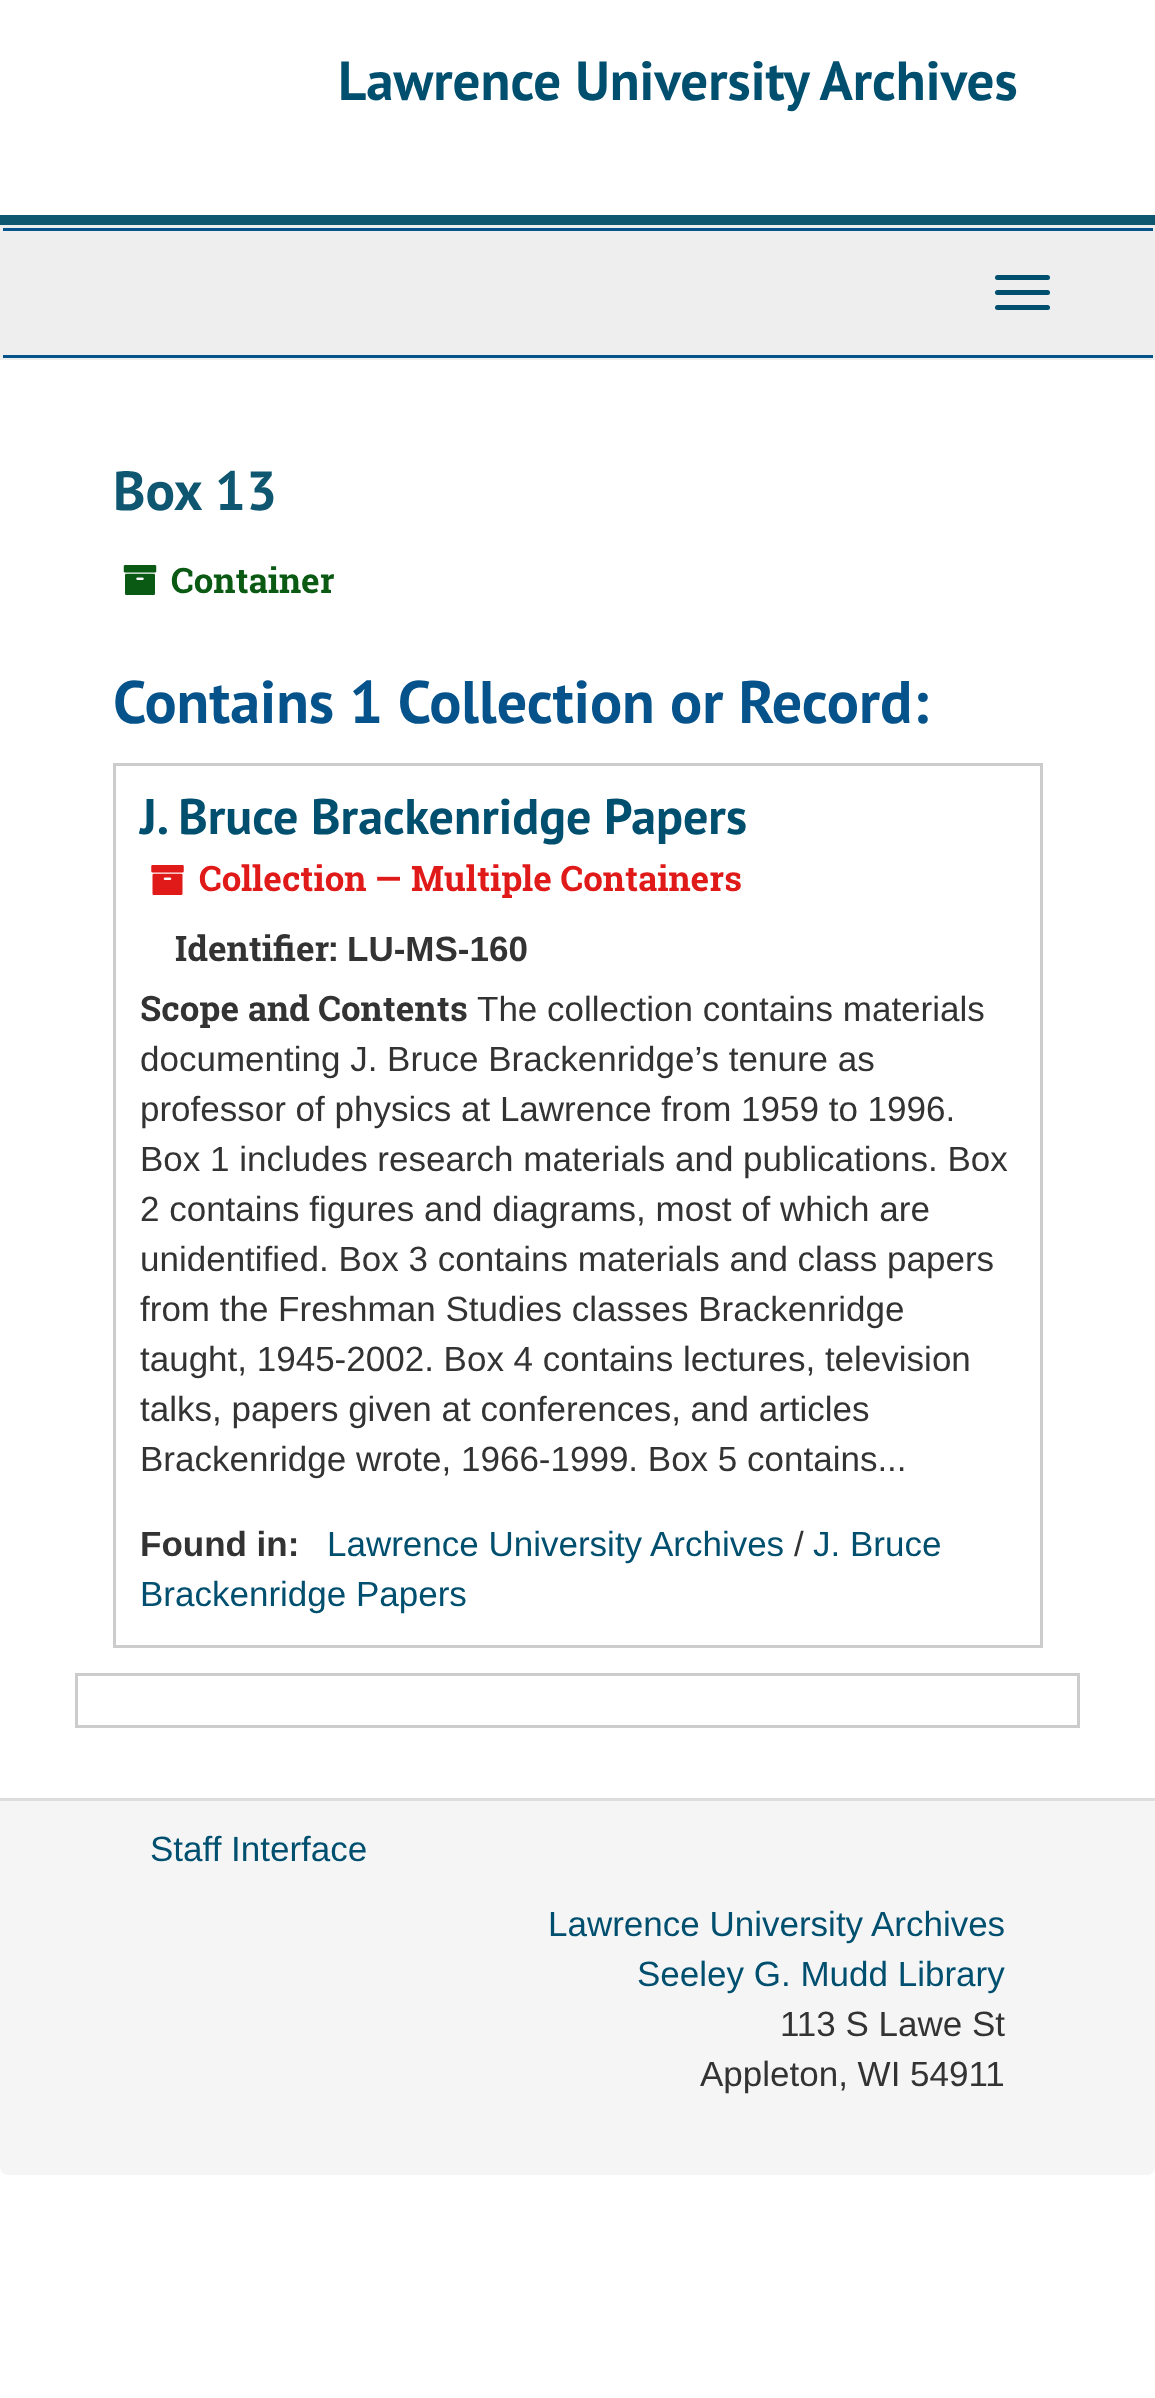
async function draw(canvas) {
  canvas.width = 1155
  canvas.height = 2398
  const ctx = canvas.getContext('2d')
  ctx.miterLimit = 4
  ctx.fontKerning = 'normal'
  async function loadImage(src) {
    const img = new Image()
    img.src = src
    await img.decode()
    return img
  }

  ctx.fillStyle = '#fff'
  ctx.fillRect(0, 0, 1155, 2398)
  ctx.fillStyle = '#0f5670'
  ctx.fillRect(0, 215, 1155, 10)
  ctx.font = 'bold 55px PT Sans'
  ctx.fillStyle = '#004f6f'
  ctx.fillText('Lawrence University Archives', 338, 100)
  ctx.fillStyle = '#eee'
  ctx.fillRect(0, 225, 1155, 135)
  ctx.fillStyle = '#05538a'
  ctx.fillRect(3, 228, 1150, 3)
  ctx.fillRect(3, 355, 1150, 3)
  ctx.fillStyle = '#004f6f'
  ctx.beginPath()
  ctx.roundRect(995, 275, 55, 5, 2.5)
  ctx.fill()
  ctx.beginPath()
  ctx.roundRect(995, 290, 55, 5, 2.5)
  ctx.fill()
  ctx.beginPath()
  ctx.roundRect(995, 305, 55, 5, 2.5)
  ctx.fill()
  ctx.fillStyle = '#0f5670'
  ctx.fillText('Box 13', 113, 510)
  ctx.drawImage(await loadImage('image0.png'), 123, 565, 34, 30)
  ctx.font = 'bold 35px Roboto Slab'
  ctx.fillStyle = '#0b5a14'
  ctx.fillText('Container', 171, 593)
  ctx.font = 'bold 60px PT Sans'
  ctx.fillStyle = '#05538a'
  ctx.fillText('Contains 1 Collection or Record:', 113, 723)
  ctx.strokeStyle = '#ccc'
  ctx.lineWidth = 3
  ctx.strokeRect(114.5, 764.5, 927, 882)
  ctx.font = 'bold 50px PT Sans'
  ctx.fillStyle = '#004f6f'
  ctx.fillText('J. Bruce Brackenridge Papers', 140, 834)
  ctx.drawImage(await loadImage('image1.png'), 151, 865, 33, 30)
  ctx.font = 'bold 35px Roboto Slab'
  ctx.fillStyle = '#e01919'
  ctx.fillText('Collection — Multiple Containers', 199, 891)
  ctx.fillStyle = '#333'
  ctx.fillText('Identifier:', 175, 961)
  ctx.font = 'bold 35px Liberation Sans'
  ctx.fillText('LU-MS-160', 347, 961)
  ctx.font = 'bold 35px Roboto Slab'
  ctx.fillText('Scope and Contents', 140, 1021)
  ctx.font = '35px Liberation Sans'
  ctx.fillText('The collection contains materials', 477, 1021)
  ctx.fillText('documenting J. Bruce Brackenridge’s tenure as', 140, 1071)
  ctx.fillText('professor of physics at Lawrence from 1959 to 1996.', 140, 1121)
  ctx.fillText('Box 1 includes research materials and publications. Box', 140, 1171)
  ctx.fillText('2 contains figures and diagrams, most of which are', 140, 1221)
  ctx.fillText('unidentified. Box 3 contains materials and class papers', 140, 1271)
  ctx.fillText('from the Freshman Studies classes Brackenridge', 140, 1321)
  ctx.fillText('taught, 1945-2002. Box 4 contains lectures, television', 140, 1371)
  ctx.fillText('talks, papers given at conferences, and articles', 140, 1421)
  ctx.fillText('Brackenridge wrote, 1966-1999. Box 5 contains...', 140, 1471)
  ctx.font = 'bold 35px Liberation Sans'
  ctx.fillText('Found in:', 140, 1556)
  ctx.font = '35px Liberation Sans'
  ctx.fillStyle = '#004f6f'
  ctx.fillText('Lawrence University Archives', 327, 1556)
  ctx.fillStyle = '#333'
  ctx.fillText('/', 794, 1556)
  ctx.fillStyle = '#004f6f'
  ctx.fillText('J. Bruce', 813, 1556)
  ctx.fillText('Brackenridge Papers', 140, 1606)
  ctx.strokeRect(76.5, 1674.5, 1002, 52)
  ctx.fillStyle = '#f5f5f5'
  ctx.beginPath()
  ctx.roundRect(0, 1798, 1155, 377, [0, 0, 8, 8])
  ctx.fill()
  ctx.fillStyle = '#ddd'
  ctx.fillRect(0, 1798, 1155, 3)
  ctx.fillStyle = '#004f6f'
  ctx.fillText('Staff Interface', 150, 1861)
  ctx.fillText('Lawrence University Archives', 548, 1936)
  ctx.fillText('Seeley G. Mudd Library', 637, 1986)
  ctx.fillStyle = '#333'
  ctx.fillText('113 S Lawe St', 780, 2036)
  ctx.fillText('Appleton, WI 54911', 700, 2086)
}

draw(document.querySelector('canvas'))
